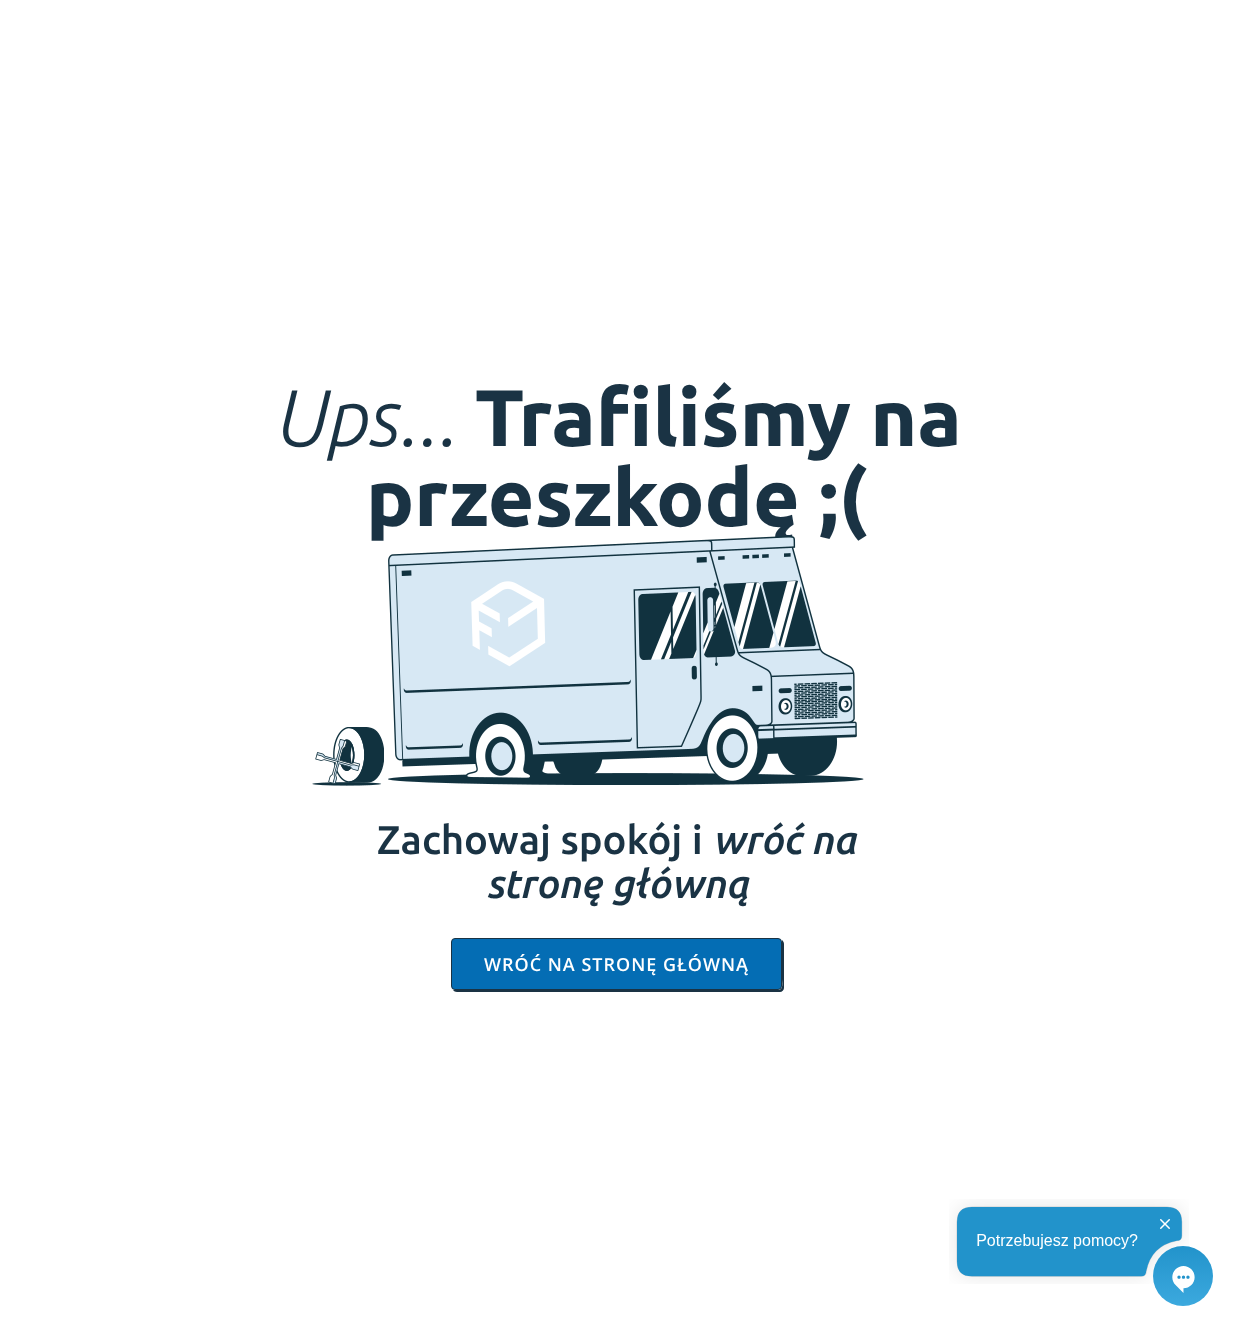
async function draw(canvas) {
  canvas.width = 1233
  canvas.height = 1326
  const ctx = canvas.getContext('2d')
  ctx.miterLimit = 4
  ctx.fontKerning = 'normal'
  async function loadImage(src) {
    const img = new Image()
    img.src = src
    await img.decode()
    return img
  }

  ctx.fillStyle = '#fff'
  ctx.fillRect(0, 0, 1233, 1326)
  ctx.font = 'italic 300 80px Ubuntu'
  ctx.fillStyle = '#1a3344'
  ctx.fillText('Ups...', 272, 446)
  ctx.font = 'bold 80px Ubuntu'
  ctx.fillText('Trafiliśmy na', 475, 446)
  ctx.fillText('przeszkodę ;(', 366, 526)
  ctx.drawImage(await loadImage('image0.png'), 312, 536, 552, 250)
  ctx.font = '500 40px Ubuntu'
  ctx.fillText('Zachowaj spokój i', 377, 854)
  ctx.font = 'italic 500 40px Ubuntu'
  ctx.fillText('wróć na', 712, 854)
  ctx.fillText('stronę główną', 486, 898)
  ctx.beginPath()
  ctx.moveTo(453, 990)
  ctx.bezierCurveTo(454, 991, 455, 992, 457, 992)
  ctx.lineTo(780, 992)
  ctx.bezierCurveTo(782, 992, 784, 990, 784, 988)
  ctx.lineTo(784, 944)
  ctx.bezierCurveTo(784, 942, 783, 941, 782, 940)
  ctx.lineTo(782, 979)
  ctx.bezierCurveTo(782, 982, 784, 990, 778, 990)
  ctx.closePath()
  ctx.fill()
  ctx.fillStyle = '#046db4'
  ctx.beginPath()
  ctx.roundRect(451.5, 938.5, 330, 51, 3.5)
  ctx.fill()
  ctx.strokeStyle = '#1a3344'
  ctx.stroke()
  ctx.letterSpacing = '1px'
  ctx.font = '600 18px Open Sans'
  ctx.fillStyle = '#fff'
  ctx.fillText('WRÓĆ NA STRONĘ GŁÓWNĄ', 484, 971)
  ctx.drawImage(await loadImage('image1.png'), 949, 1199, 240, 85)
  ctx.drawImage(await loadImage('image2.png'), 1153, 1246, 60, 60)
}

draw(document.querySelector('canvas'))
